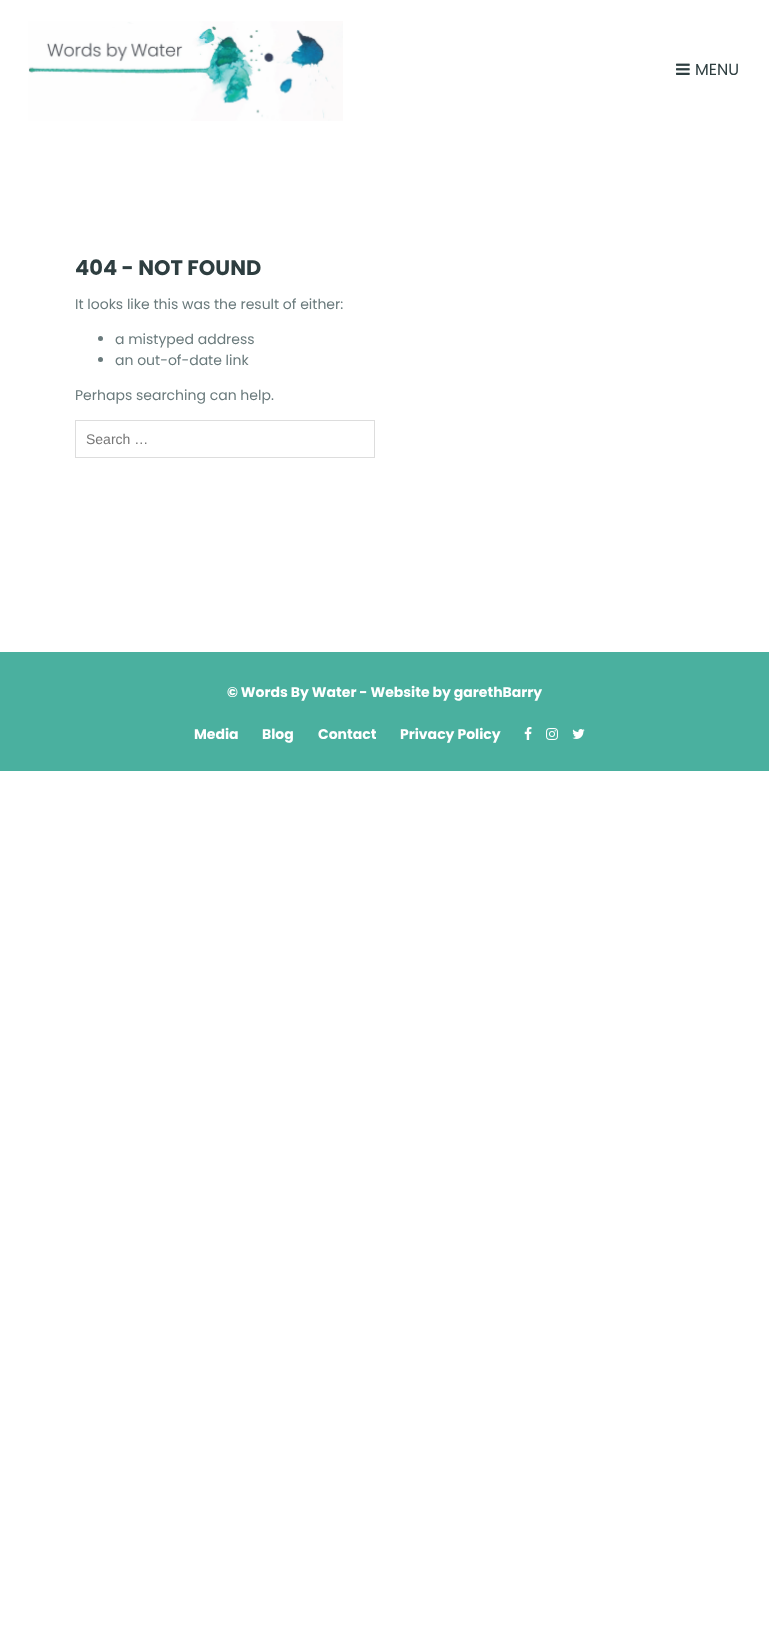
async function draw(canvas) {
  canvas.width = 769
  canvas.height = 1630
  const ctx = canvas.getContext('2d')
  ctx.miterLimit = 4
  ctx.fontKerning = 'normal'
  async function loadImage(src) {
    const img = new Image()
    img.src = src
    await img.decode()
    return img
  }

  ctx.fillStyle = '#fff'
  ctx.fillRect(0, 0, 769, 1630)
  ctx.drawImage(await loadImage('image0.png'), 28, 21, 315, 100)
  ctx.drawImage(await loadImage('image1.png'), 676, 63, 14, 12)
  ctx.font = '16px Poppins'
  ctx.fillStyle = '#2e3e40'
  ctx.fillText('MENU', 695, 75)
  ctx.font = 'bold 21px Poppins'
  ctx.fillText('404 - NOT FOUND', 75, 275)
  ctx.font = '14px Poppins'
  ctx.fillStyle = '#6a7a7c'
  ctx.fillText('It looks like this was the result of either:', 75, 309)
  ctx.beginPath()
  ctx.arc(100.5, 338.5, 2.5, 0, 2 * Math.PI)
  ctx.fill()
  ctx.fillText('a mistyped address', 115, 344)
  ctx.beginPath()
  ctx.arc(100.5, 359.5, 2.5, 0, 2 * Math.PI)
  ctx.fill()
  ctx.fillText('an out-of-date link', 115, 365)
  ctx.fillText('Perhaps searching can help.', 75, 400)
  ctx.strokeStyle = '#ddd'
  ctx.strokeRect(75.5, 420.5, 299, 37)
  ctx.font = '14px Liberation Sans'
  ctx.fillStyle = '#757575'
  ctx.fillText('Search …', 86, 444)
  ctx.fillStyle = '#4ab09f'
  ctx.fillRect(0, 652, 769, 119)
  ctx.font = 'bold 14px Poppins'
  ctx.fillStyle = '#fff'
  ctx.fillText('© Words By Water - Website by garethBarry', 227, 697)
  ctx.fillText('Media', 194, 739)
  ctx.fillText('Blog', 262, 739)
  ctx.fillText('Contact', 318, 739)
  ctx.fillText('Privacy Policy', 400, 739)
  ctx.drawImage(await loadImage('image2.png'), 524, 727, 8, 13)
  ctx.drawImage(await loadImage('image3.png'), 546, 728, 12, 12)
  ctx.drawImage(await loadImage('image4.png'), 572, 729, 13, 10)
}

draw(document.querySelector('canvas'))
